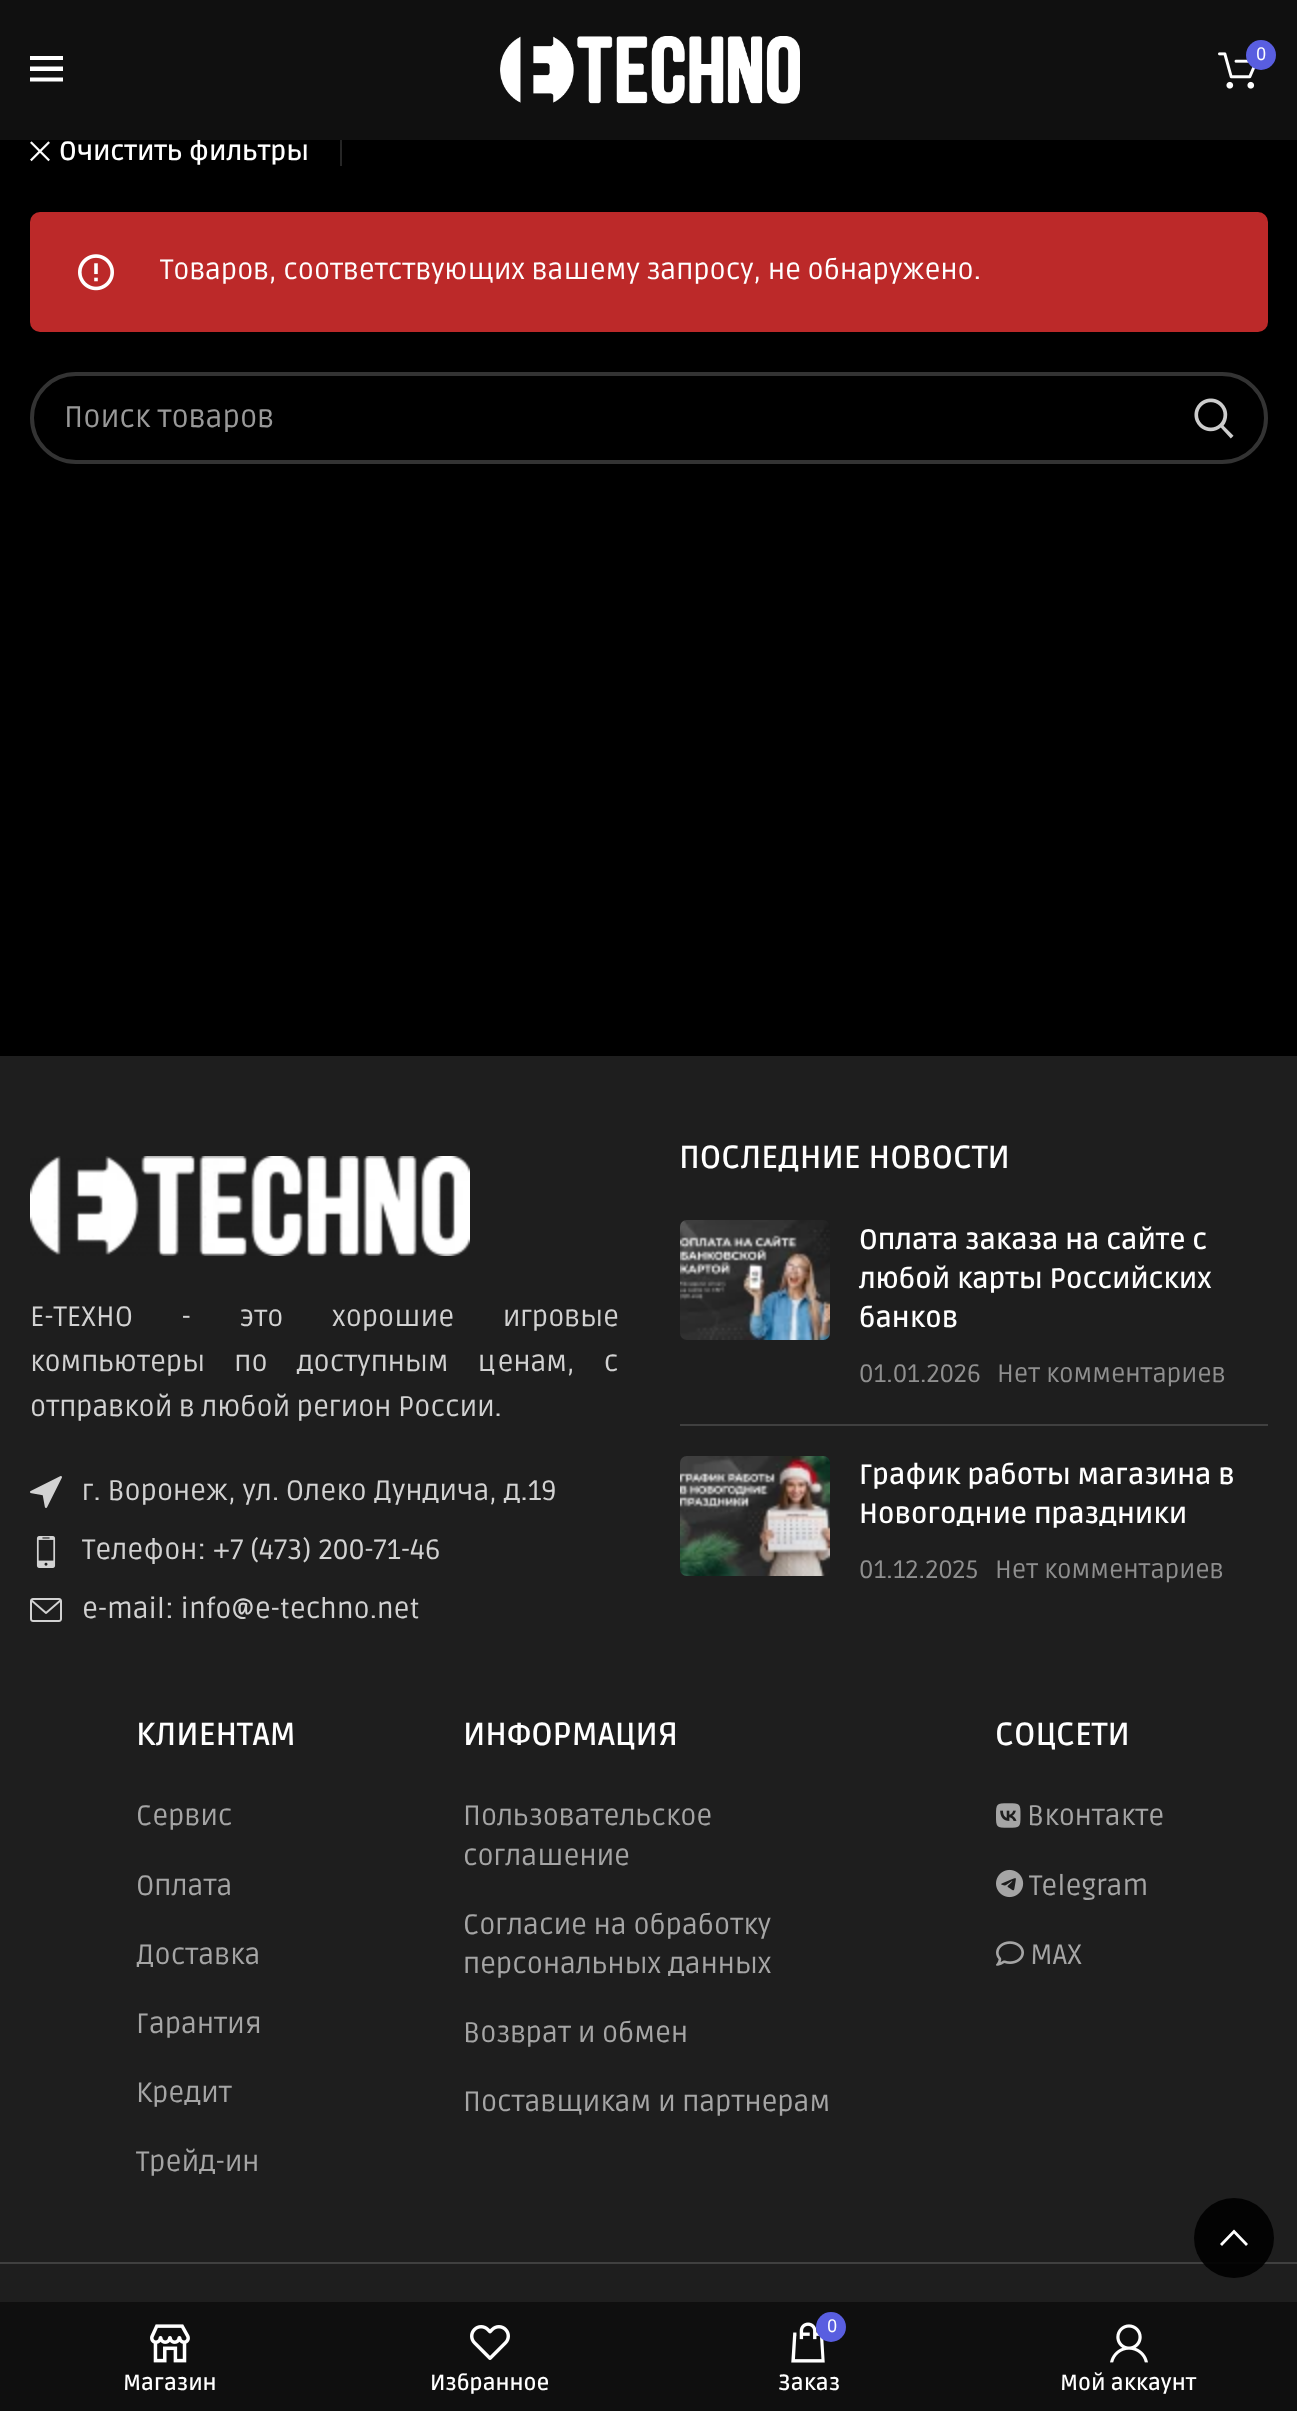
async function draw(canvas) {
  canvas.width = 1297
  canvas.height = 2411
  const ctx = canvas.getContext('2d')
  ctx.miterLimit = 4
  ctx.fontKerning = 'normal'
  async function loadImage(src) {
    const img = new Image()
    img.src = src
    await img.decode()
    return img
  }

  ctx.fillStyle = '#000'
  ctx.fillRect(0, 0, 1297, 2411)
  ctx.fillStyle = '#262626'
  ctx.fillRect(340, 140, 2, 26)
  ctx.drawImage(await loadImage('image2.png'), 30, 141, 20, 21)
  ctx.beginPath()
  ctx.moveTo(30, 162)
  ctx.bezierCurveTo(26, 157.5, 26, 150.5, 30, 146)
  ctx.strokeStyle = '#000'
  ctx.lineWidth = 2
  ctx.stroke()
  ctx.fillStyle = '#0000001a'
  ctx.filter = 'blur(3px)'
  ctx.beginPath()
  ctx.rect(0, 2, 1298, 140)
  ctx.fill()
  ctx.filter = 'none'
  ctx.font = '600 26.5px Ruda'
  ctx.fillStyle = '#fff'
  ctx.fillText('Очистить фильтры', 59, 160)
  ctx.fillStyle = '#101010'
  ctx.fillRect(0, 0, 1297, 140)
  ctx.drawImage(await loadImage('image0.png'), 500, 36, 300, 68)
  ctx.drawImage(await loadImage('image1.png'), 1218, 52, 38, 37)
  ctx.fillStyle = '#595ee0'
  ctx.beginPath()
  ctx.arc(1261, 55, 15, 0, 2 * Math.PI)
  ctx.fill()
  ctx.font = '18px Ruda'
  ctx.fillStyle = '#fff'
  ctx.fillText('0', 1256, 60)
  ctx.beginPath()
  ctx.moveTo(30, 56)
  ctx.lineTo(63, 56)
  ctx.lineTo(63, 60)
  ctx.lineTo(30, 60)
  ctx.closePath()
  ctx.moveTo(30, 66.5)
  ctx.lineTo(63, 66.5)
  ctx.lineTo(63, 71)
  ctx.lineTo(30, 71)
  ctx.closePath()
  ctx.moveTo(30, 77.5)
  ctx.lineTo(63, 77.5)
  ctx.lineTo(63, 81.5)
  ctx.lineTo(30, 81.5)
  ctx.closePath()
  ctx.fill()
  ctx.fillStyle = '#bc2929'
  ctx.beginPath()
  ctx.roundRect(30, 212, 1238, 120, 10)
  ctx.fill()
  ctx.drawImage(await loadImage('image3.png'), 78, 254, 36, 37)
  ctx.font = '28px Ruda'
  ctx.fillStyle = '#fff'
  ctx.fillText('Товаров, соответствующих вашему запросу, не обнаружено.', 160, 279)
  ctx.beginPath()
  ctx.roundRect(32, 374, 1234, 88, 44)
  ctx.strokeStyle = '#333'
  ctx.lineWidth = 4
  ctx.stroke()
  ctx.font = '30px Ruda'
  ctx.fillStyle = '#999'
  ctx.fillText('Поиск товаров', 64, 427)
  ctx.drawImage(await loadImage('image4.png'), 1194, 398, 40, 41)
  ctx.fillStyle = '#1e1e1e'
  ctx.fillRect(0, 1056, 1297, 1246)
  ctx.drawImage(await loadImage('image5.png'), 30, 1156, 440, 100)
  ctx.wordSpacing = '42px'
  ctx.font = '28px Ruda'
  ctx.fillStyle = '#d2d2d2'
  ctx.fillText('Е-ТЕХНО - это хорошие игровые', 30, 1326)
  ctx.wordSpacing = '22.5px'
  ctx.fillText('компьютеры по доступным ценам, с', 30, 1371)
  ctx.wordSpacing = '0px'
  ctx.fillText('отправкой в любой регион России.', 30, 1416)
  ctx.drawImage(await loadImage('image6.png'), 30, 1476, 32, 32)
  ctx.fillText('г. Воронеж, ул. Олеко Дундича, д.19', 82, 1500)
  ctx.drawImage(await loadImage('image7.png'), 36, 1536, 20, 32)
  ctx.fillText('Телефон: +7 (473) 200-71-46', 82, 1559)
  ctx.drawImage(await loadImage('image8.png'), 30, 1598, 32, 24)
  ctx.fillText('e-mail: info@e-techno.net', 82, 1618)
  ctx.font = '600 32px Ruda'
  ctx.fillStyle = '#fff'
  ctx.fillText('ПОСЛЕДНИЕ НОВОСТИ', 679, 1168)
  ctx.fillStyle = '#404040'
  ctx.fillRect(680, 1424, 588, 2)
  ctx.drawImage(await loadImage('image9.png'), 680, 1220, 150, 120)
  ctx.font = '600 28px Ruda'
  ctx.fillStyle = '#fff'
  ctx.fillText('Оплата заказа на сайте с', 859, 1249)
  ctx.fillText('любой карты Российских', 859, 1288)
  ctx.fillText('банков', 859, 1327)
  ctx.font = '25.25px Ruda'
  ctx.fillStyle = '#8f8f8f'
  ctx.fillText('01.01.2026', 859, 1382)
  ctx.fillText('Нет комментариев', 997, 1382)
  ctx.drawImage(await loadImage('image10.png'), 680, 1456, 150, 120)
  ctx.font = '600 28px Ruda'
  ctx.fillStyle = '#fff'
  ctx.fillText('График работы магазина в', 859, 1484)
  ctx.fillText('Новогодние праздники', 859, 1523)
  ctx.font = '25.25px Ruda'
  ctx.fillStyle = '#8f8f8f'
  ctx.fillText('01.12.2025', 859, 1578)
  ctx.fillText('Нет комментариев', 995, 1578)
  ctx.font = '600 32px Ruda'
  ctx.fillStyle = '#fff'
  ctx.fillText('КЛИЕНТАМ', 136, 1745)
  ctx.font = '28px Ruda'
  ctx.fillStyle = '#a5a5a5'
  ctx.fillText('Сервис', 136, 1825)
  ctx.fillText('Оплата', 136, 1895)
  ctx.fillText('Доставка', 136, 1964)
  ctx.fillText('Гарантия', 136, 2033)
  ctx.fillText('Кредит', 136, 2102)
  ctx.fillText('Трейд-ин', 136, 2171)
  ctx.font = '600 32px Ruda'
  ctx.fillStyle = '#fff'
  ctx.fillText('ИНФОРМАЦИЯ', 463, 1745)
  ctx.font = '28px Ruda'
  ctx.fillStyle = '#a5a5a5'
  ctx.fillText('Пользовательское', 463, 1825)
  ctx.fillText('соглашение', 463, 1865)
  ctx.fillText('Согласие на обработку', 463, 1934)
  ctx.fillText('персональных данных', 463, 1973)
  ctx.fillText('Возврат и обмен', 463, 2042)
  ctx.fillText('Поставщикам и партнерам', 463, 2111)
  ctx.font = '600 32px Ruda'
  ctx.fillStyle = '#fff'
  ctx.fillText('СОЦСЕТИ', 995, 1745)
  ctx.drawImage(await loadImage('image11.png'), 996, 1803, 25, 25)
  ctx.font = '28px Ruda'
  ctx.fillStyle = '#a5a5a5'
  ctx.fillText('Вконтакте', 1027, 1825)
  ctx.drawImage(await loadImage('image12.png'), 996, 1869, 28, 29)
  ctx.fillText('Telegram', 1029, 1895)
  ctx.drawImage(await loadImage('image13.png'), 996, 1941, 28, 25)
  ctx.fillText('MAX', 1030, 1964)
  ctx.fillStyle = '#404040'
  ctx.fillRect(0, 2262, 1297, 2)
  ctx.fillStyle = '#000000e6'
  ctx.beginPath()
  ctx.arc(1234, 2238, 40, 0, 2 * Math.PI)
  ctx.fill()
  ctx.fillStyle = '#fff'
  ctx.beginPath()
  ctx.moveTo(1234, 2229.5)
  ctx.lineTo(1248, 2244)
  ctx.lineTo(1246, 2246)
  ctx.lineTo(1234, 2233.5)
  ctx.lineTo(1222, 2246)
  ctx.lineTo(1220, 2244)
  ctx.closePath()
  ctx.fill()
  ctx.fillStyle = '#0f0f0f'
  ctx.fillRect(0, 2302, 1297, 109)
  ctx.drawImage(await loadImage('image14.png'), 150, 2324, 40, 39)
  ctx.font = '600 22px Ruda'
  ctx.fillStyle = '#fff'
  ctx.fillText('Магазин', 123, 2390)
  ctx.drawImage(await loadImage('image15.png'), 470, 2325, 40, 35)
  ctx.fillText('Избранное', 430, 2390)
  ctx.drawImage(await loadImage('image16.png'), 791, 2322, 34, 41)
  ctx.fillStyle = '#595ee0'
  ctx.beginPath()
  ctx.arc(831, 2327, 15, 0, 2 * Math.PI)
  ctx.fill()
  ctx.font = '18px Ruda'
  ctx.fillStyle = '#fff'
  ctx.fillText('0', 827, 2332)
  ctx.font = '600 22px Ruda'
  ctx.fillText('Заказ', 778, 2390)
  ctx.drawImage(await loadImage('image17.png'), 1110, 2324, 38, 39)
  ctx.fillText('Мой аккаунт', 1060, 2390)
}

draw(document.querySelector('canvas'))
